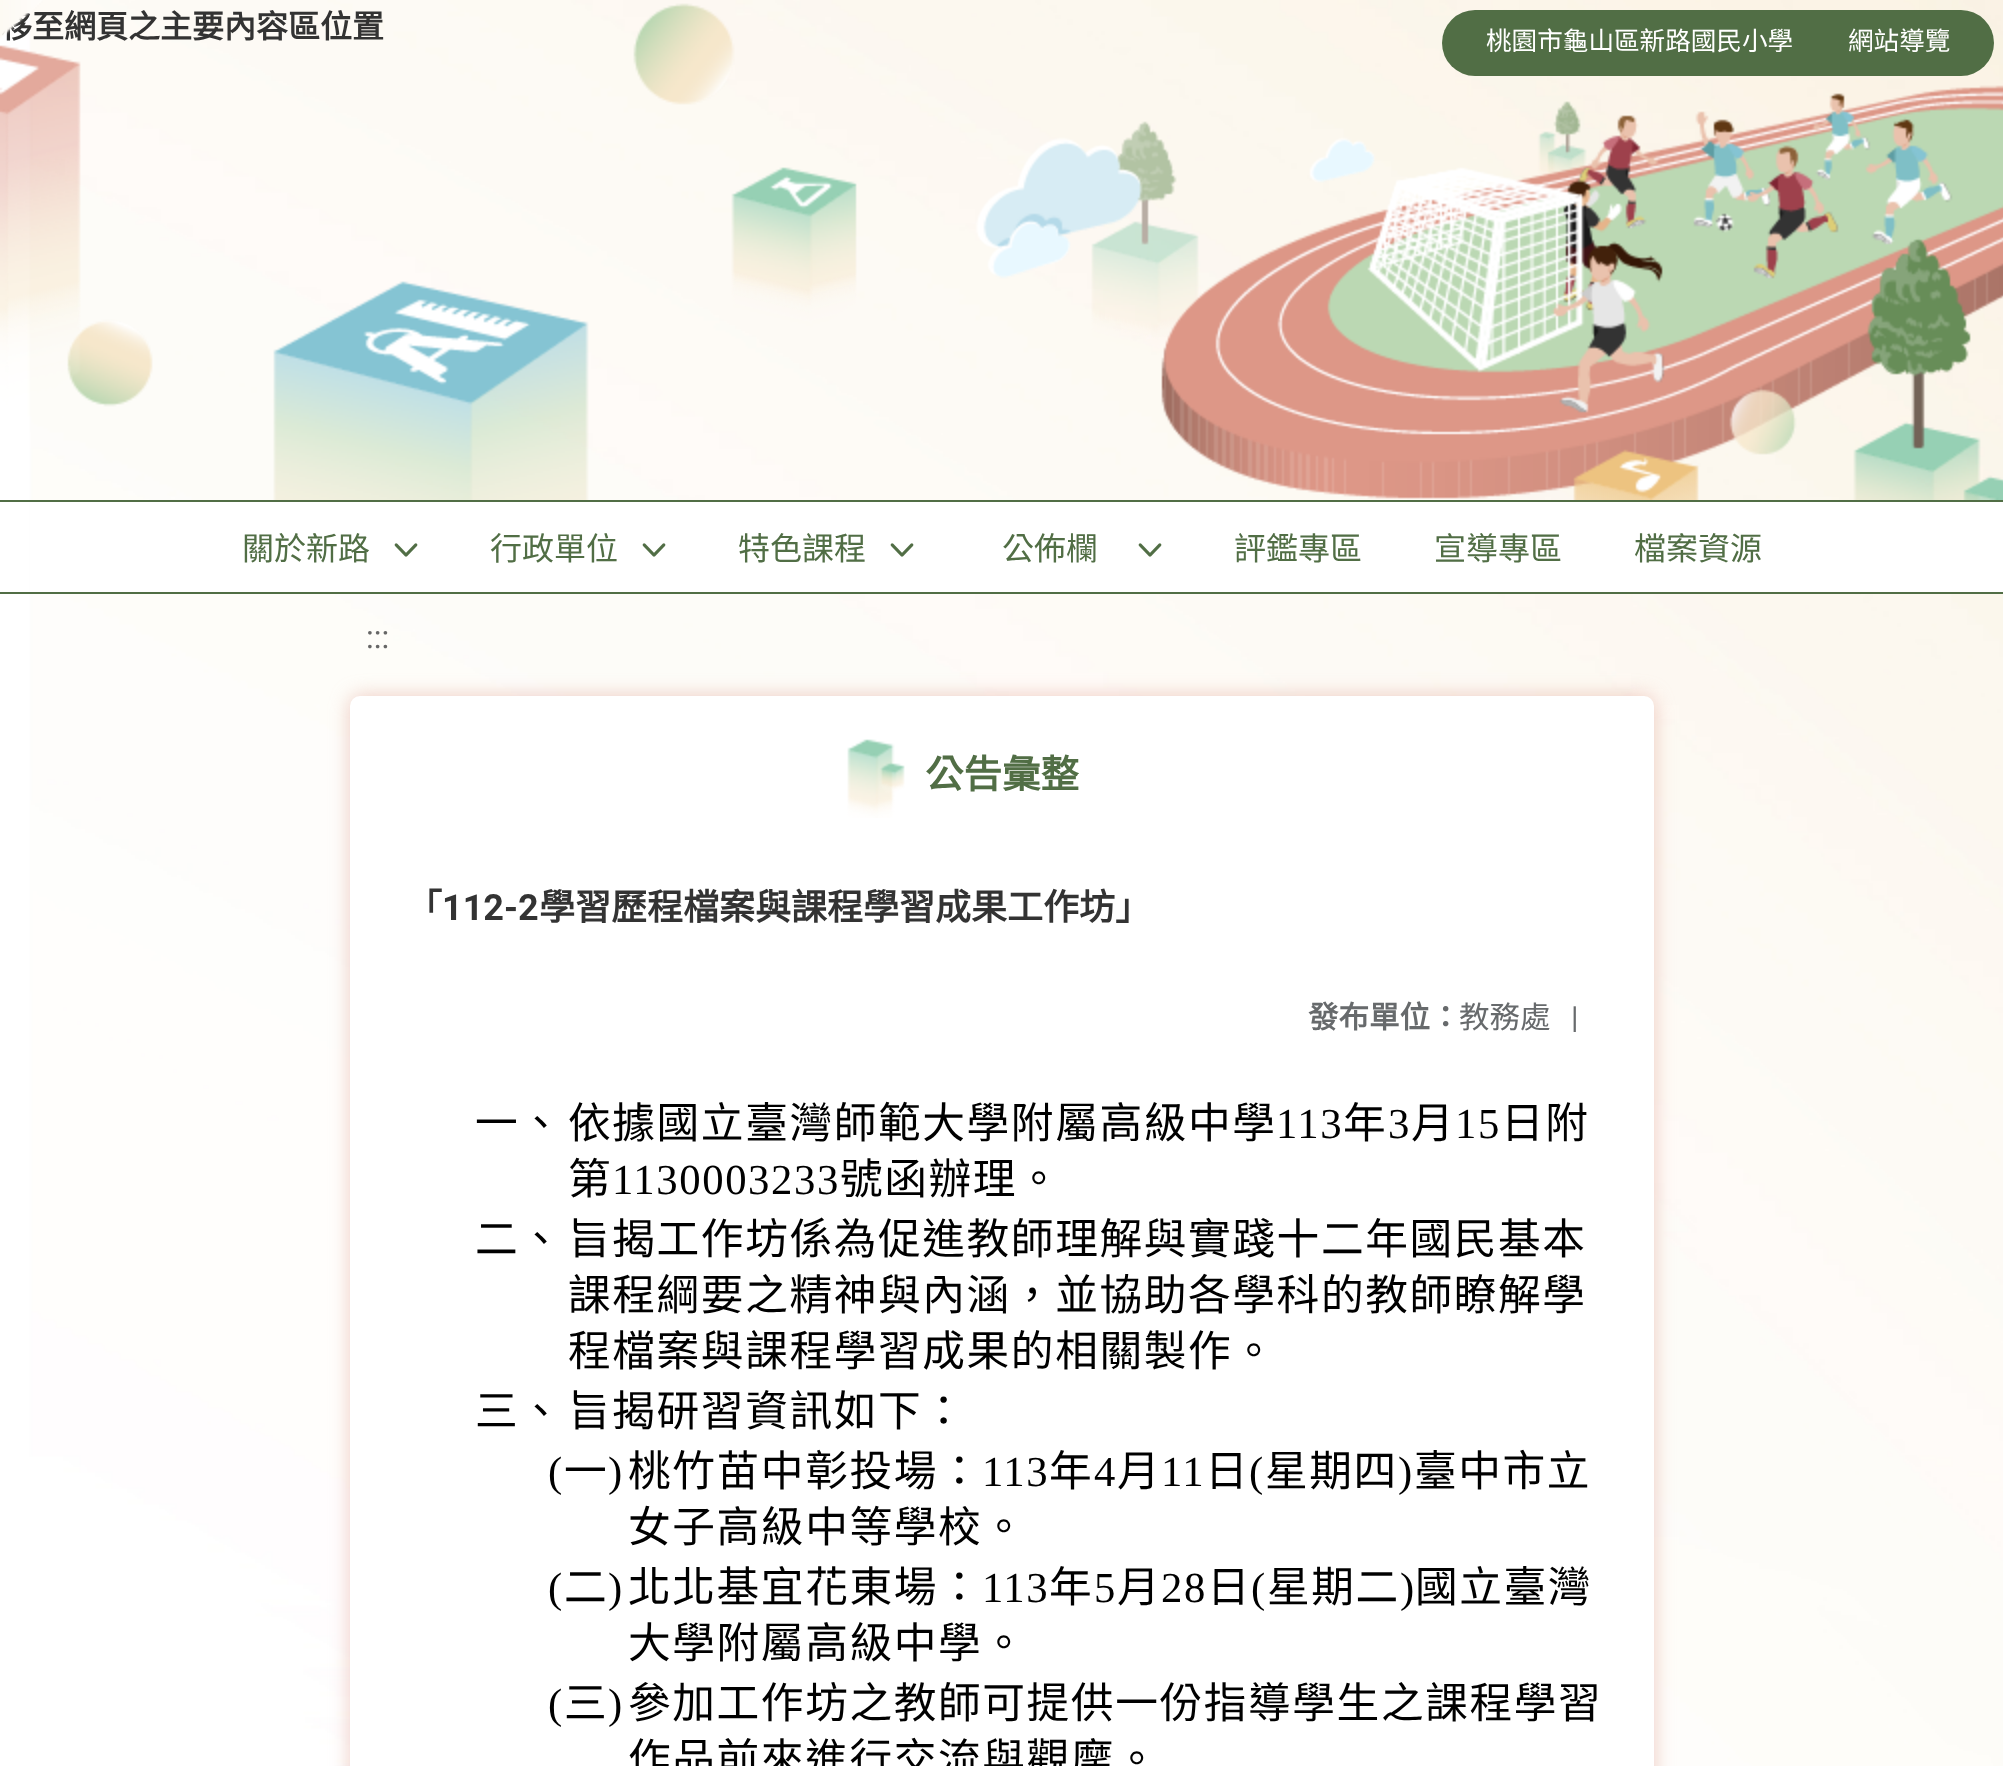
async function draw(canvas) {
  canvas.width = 2003
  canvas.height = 1766
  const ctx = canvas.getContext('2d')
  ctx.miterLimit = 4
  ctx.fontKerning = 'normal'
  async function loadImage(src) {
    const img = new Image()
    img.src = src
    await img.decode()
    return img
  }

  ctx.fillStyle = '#fff'
  ctx.fillRect(0, 0, 2003, 1766)
  ctx.drawImage(await loadImage('image0.png'), 0, 0, 2003, 1766)
  ctx.font = 'bold 32px Noto Sans CJK TC'
  ctx.fillStyle = '#333'
  ctx.fillText('移至網頁之主要內容區位置', 0, 38)
  ctx.drawImage(await loadImage('image1.png'), 0, 0, 2003, 500)
  ctx.fillStyle = '#516e45'
  ctx.beginPath()
  ctx.roundRect(1442, 10, 552, 66, 33)
  ctx.fill()
  ctx.font = '25.6px Noto Sans CJK TC'
  ctx.fillStyle = '#fff'
  ctx.fillText('桃園市龜山區新路國民小學', 1486, 50)
  ctx.fillText('網站導覽', 1848, 50)
  ctx.fillRect(30, 502, 1973, 90)
  ctx.fillStyle = '#516e45'
  ctx.fillRect(0, 500, 2003, 2)
  ctx.fillRect(0, 592, 2003, 2)
  ctx.font = '32px Noto Sans CJK TC'
  ctx.fillText('關於新路', 242, 560)
  ctx.drawImage(await loadImage('image2.png'), 394, 543, 24, 14)
  ctx.fillText('行政單位', 490, 560)
  ctx.drawImage(await loadImage('image2.png'), 642, 543, 24, 14)
  ctx.fillText('特色課程', 738, 560)
  ctx.drawImage(await loadImage('image2.png'), 890, 543, 24, 14)
  ctx.fillText('公佈欄', 1002, 560)
  ctx.drawImage(await loadImage('image2.png'), 1138, 543, 24, 14)
  ctx.fillText('評鑑專區', 1234, 560)
  ctx.fillText('宣導專區', 1434, 560)
  ctx.fillText('檔案資源', 1634, 560)
  ctx.font = '32px Roboto'
  ctx.fillStyle = '#666'
  ctx.fillText(':::', 366, 648)
  ctx.fillStyle = '#dd978780'
  ctx.filter = 'blur(10px)'
  ctx.beginPath()
  ctx.roundRect(350, 696, 1304, 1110, 10)
  ctx.fill()
  ctx.filter = 'none'
  ctx.fillStyle = '#fff'
  ctx.beginPath()
  ctx.roundRect(350, 696, 1304, 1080, 10)
  ctx.fill()
  ctx.drawImage(await loadImage('image3.png'), 847, 739, 58, 79)
  ctx.font = 'bold 38.5px Noto Sans CJK TC'
  ctx.fillStyle = '#516e45'
  ctx.fillText('公告彙整', 925, 788)
  ctx.font = 'bold 36px Noto Sans CJK TC'
  ctx.fillStyle = '#333'
  ctx.fillText('「', 406, 920)
  ctx.font = 'bold 36px Roboto'
  ctx.fillText('112-2', 442, 920)
  ctx.font = 'bold 36px Noto Sans CJK TC'
  ctx.fillText('學習歷程檔案與課程學習成果工作坊」', 539, 920)
  ctx.font = 'bold 30.5px Noto Sans CJK TC'
  ctx.fillStyle = '#676a6c'
  ctx.fillText('發布單位：', 1308, 1028)
  ctx.font = '30.5px Noto Sans CJK TC'
  ctx.fillText('教務處', 1459, 1028)
  ctx.font = '30.5px Roboto'
  ctx.fillText('|', 1571, 1028)
  ctx.letterSpacing = '1.6px'
  ctx.font = '42.7px Noto Sans CJK TC'
  ctx.fillStyle = '#000'
  ctx.fillText('一、', 475, 1138)
  ctx.fillText('依據國立臺灣師範大學附屬高級中學', 568, 1138)
  ctx.font = '42.7px Liberation Serif'
  ctx.fillText('113', 1276, 1138)
  ctx.font = '42.7px Noto Sans CJK TC'
  ctx.fillText('年', 1343, 1138)
  ctx.font = '42.7px Liberation Serif'
  ctx.fillText('3', 1388, 1138)
  ctx.font = '42.7px Noto Sans CJK TC'
  ctx.fillText('月', 1411, 1138)
  ctx.font = '42.7px Liberation Serif'
  ctx.fillText('15', 1455, 1138)
  ctx.font = '42.7px Noto Sans CJK TC'
  ctx.fillText('日附', 1501, 1138)
  ctx.fillText('第', 568, 1194)
  ctx.font = '42.7px Liberation Serif'
  ctx.fillText('1130003233', 612, 1194)
  ctx.font = '42.7px Noto Sans CJK TC'
  ctx.fillText('號函辦理。', 840, 1194)
  ctx.fillText('二、', 475, 1254)
  ctx.fillText('旨揭工作坊係為促進教師理解與實踐十二年國民基本', 568, 1254)
  ctx.fillText('課程綱要之精神與內涵，並協助各學科的教師瞭解學', 568, 1310)
  ctx.fillText('程檔案與課程學習成果的相關製作。', 568, 1366)
  ctx.fillText('三、', 475, 1426)
  ctx.fillText('旨揭研習資訊如下：', 568, 1426)
  ctx.font = '42.7px Liberation Serif'
  ctx.fillText('(', 548, 1486)
  ctx.font = '42.7px Noto Sans CJK TC'
  ctx.fillText('一', 564, 1486)
  ctx.font = '42.7px Liberation Serif'
  ctx.fillText(')', 608, 1486)
  ctx.font = '42.7px Noto Sans CJK TC'
  ctx.fillText('桃竹苗中彰投場：', 628, 1486)
  ctx.font = '42.7px Liberation Serif'
  ctx.fillText('113', 982, 1486)
  ctx.font = '42.7px Noto Sans CJK TC'
  ctx.fillText('年', 1049, 1486)
  ctx.font = '42.7px Liberation Serif'
  ctx.fillText('4', 1094, 1486)
  ctx.font = '42.7px Noto Sans CJK TC'
  ctx.fillText('月', 1117, 1486)
  ctx.font = '42.7px Liberation Serif'
  ctx.fillText('11', 1161, 1486)
  ctx.font = '42.7px Noto Sans CJK TC'
  ctx.fillText('日', 1205, 1486)
  ctx.font = '42.7px Liberation Serif'
  ctx.fillText('(', 1249, 1486)
  ctx.font = '42.7px Noto Sans CJK TC'
  ctx.fillText('星期四', 1265, 1486)
  ctx.font = '42.7px Liberation Serif'
  ctx.fillText(')', 1398, 1486)
  ctx.font = '42.7px Noto Sans CJK TC'
  ctx.fillText('臺中市立', 1414, 1486)
  ctx.fillText('女子高級中等學校。', 628, 1542)
  ctx.font = '42.7px Liberation Serif'
  ctx.fillText('(', 548, 1602)
  ctx.font = '42.7px Noto Sans CJK TC'
  ctx.fillText('二', 564, 1602)
  ctx.font = '42.7px Liberation Serif'
  ctx.fillText(')', 608, 1602)
  ctx.font = '42.7px Noto Sans CJK TC'
  ctx.fillText('北北基宜花東場：', 628, 1602)
  ctx.font = '42.7px Liberation Serif'
  ctx.fillText('113', 982, 1602)
  ctx.font = '42.7px Noto Sans CJK TC'
  ctx.fillText('年', 1049, 1602)
  ctx.font = '42.7px Liberation Serif'
  ctx.fillText('5', 1094, 1602)
  ctx.font = '42.7px Noto Sans CJK TC'
  ctx.fillText('月', 1117, 1602)
  ctx.font = '42.7px Liberation Serif'
  ctx.fillText('28', 1161, 1602)
  ctx.font = '42.7px Noto Sans CJK TC'
  ctx.fillText('日', 1207, 1602)
  ctx.font = '42.7px Liberation Serif'
  ctx.fillText('(', 1251, 1602)
  ctx.font = '42.7px Noto Sans CJK TC'
  ctx.fillText('星期二', 1267, 1602)
  ctx.font = '42.7px Liberation Serif'
  ctx.fillText(')', 1400, 1602)
  ctx.font = '42.7px Noto Sans CJK TC'
  ctx.fillText('國立臺灣', 1415, 1602)
  ctx.fillText('大學附屬高級中學。', 628, 1658)
  ctx.font = '42.7px Liberation Serif'
  ctx.fillText('(', 548, 1718)
  ctx.font = '42.7px Noto Sans CJK TC'
  ctx.fillText('三', 564, 1718)
  ctx.font = '42.7px Liberation Serif'
  ctx.fillText(')', 608, 1718)
  ctx.font = '42.7px Noto Sans CJK TC'
  ctx.fillText('參加工作坊之教師可提供一份指導學生之課程學習', 628, 1718)
  ctx.fillText('作品前來進行交流與觀摩。', 628, 1774)
}

draw(document.querySelector('canvas'))
